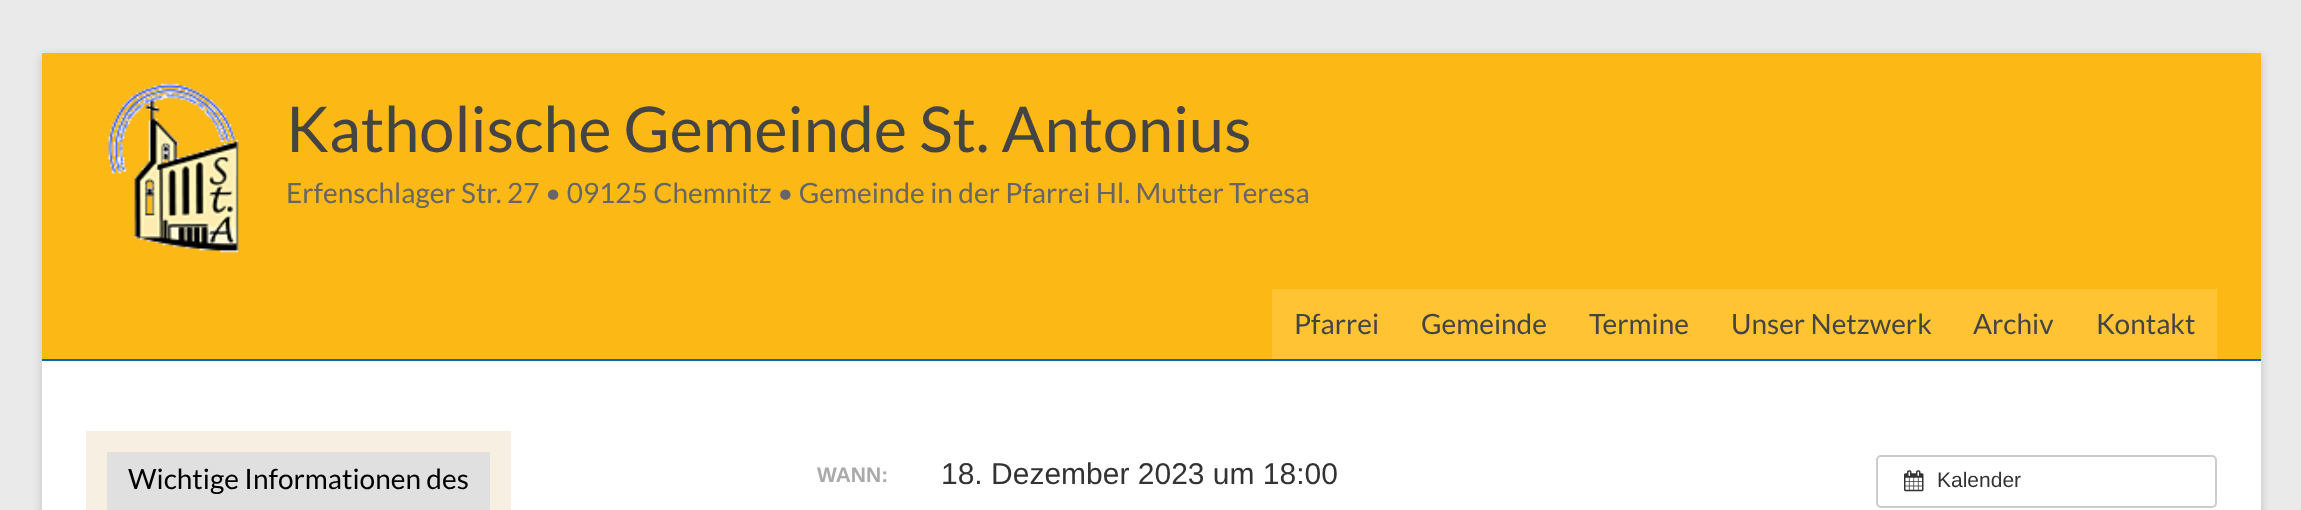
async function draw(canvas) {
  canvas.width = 2301
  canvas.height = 510
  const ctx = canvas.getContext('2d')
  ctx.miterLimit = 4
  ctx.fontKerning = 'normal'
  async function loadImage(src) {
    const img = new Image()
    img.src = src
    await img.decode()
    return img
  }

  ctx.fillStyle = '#eaeaea'
  ctx.fillRect(0, 0, 2301, 510)
  ctx.fillStyle = '#6464644d'
  ctx.filter = 'blur(5px)'
  ctx.beginPath()
  ctx.rect(42, 56, 2219, 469)
  ctx.fill()
  ctx.filter = 'none'
  ctx.fillStyle = '#fff'
  ctx.fillRect(42, 361, 2219, 149)
  ctx.fillStyle = '#fcb815'
  ctx.fillRect(42, 53, 2219, 306)
  ctx.fillStyle = '#06c'
  ctx.fillRect(42, 359, 2219, 2)
  ctx.drawImage(await loadImage('image0.png'), 108, 83, 131, 170)
  ctx.font = '63px Lato'
  ctx.fillStyle = '#444'
  ctx.fillText('Katholische Gemeinde St. Antonius', 286, 152)
  ctx.font = '28px Lato'
  ctx.fillStyle = '#666'
  ctx.fillText('Erfenschlager Str. 27 • 09125 Chemnitz • Gemeinde in der Pfarrei Hl. Mutter Teresa', 286, 203)
  ctx.fillStyle = '#ffc333'
  ctx.fillRect(1272, 289, 945, 70)
  ctx.fillStyle = '#444'
  ctx.fillText('Pfarrei', 1294, 334)
  ctx.fillText('Gemeinde', 1421, 334)
  ctx.fillText('Termine', 1589, 334)
  ctx.fillText('Unser Netzwerk', 1731, 334)
  ctx.fillText('Archiv', 1973, 334)
  ctx.fillText('Kontakt', 2096, 334)
  ctx.fillStyle = '#f7efe2'
  ctx.fillRect(86, 431, 425, 79)
  ctx.fillStyle = '#e0e0e0'
  ctx.fillRect(107, 452, 383, 58)
  ctx.fillStyle = '#000'
  ctx.fillText('Wichtige Informationen des', 128, 489)
  ctx.font = 'bold 21px Liberation Sans'
  ctx.fillStyle = '#aaa'
  ctx.fillText('WANN:', 817, 482)
  ctx.font = '30px Liberation Sans'
  ctx.fillStyle = '#333'
  ctx.fillText('18. Dezember 2023 um 18:00', 941, 484)
  ctx.beginPath()
  ctx.roundRect(1877, 456, 339, 51, 4)
  ctx.strokeStyle = '#ccc'
  ctx.lineWidth = 2
  ctx.stroke()
  ctx.drawImage(await loadImage('image1.png'), 1904, 470, 20, 22)
  ctx.font = '21px Liberation Sans'
  ctx.fillText('Kalender', 1937, 487)
}

draw(document.querySelector('canvas'))
